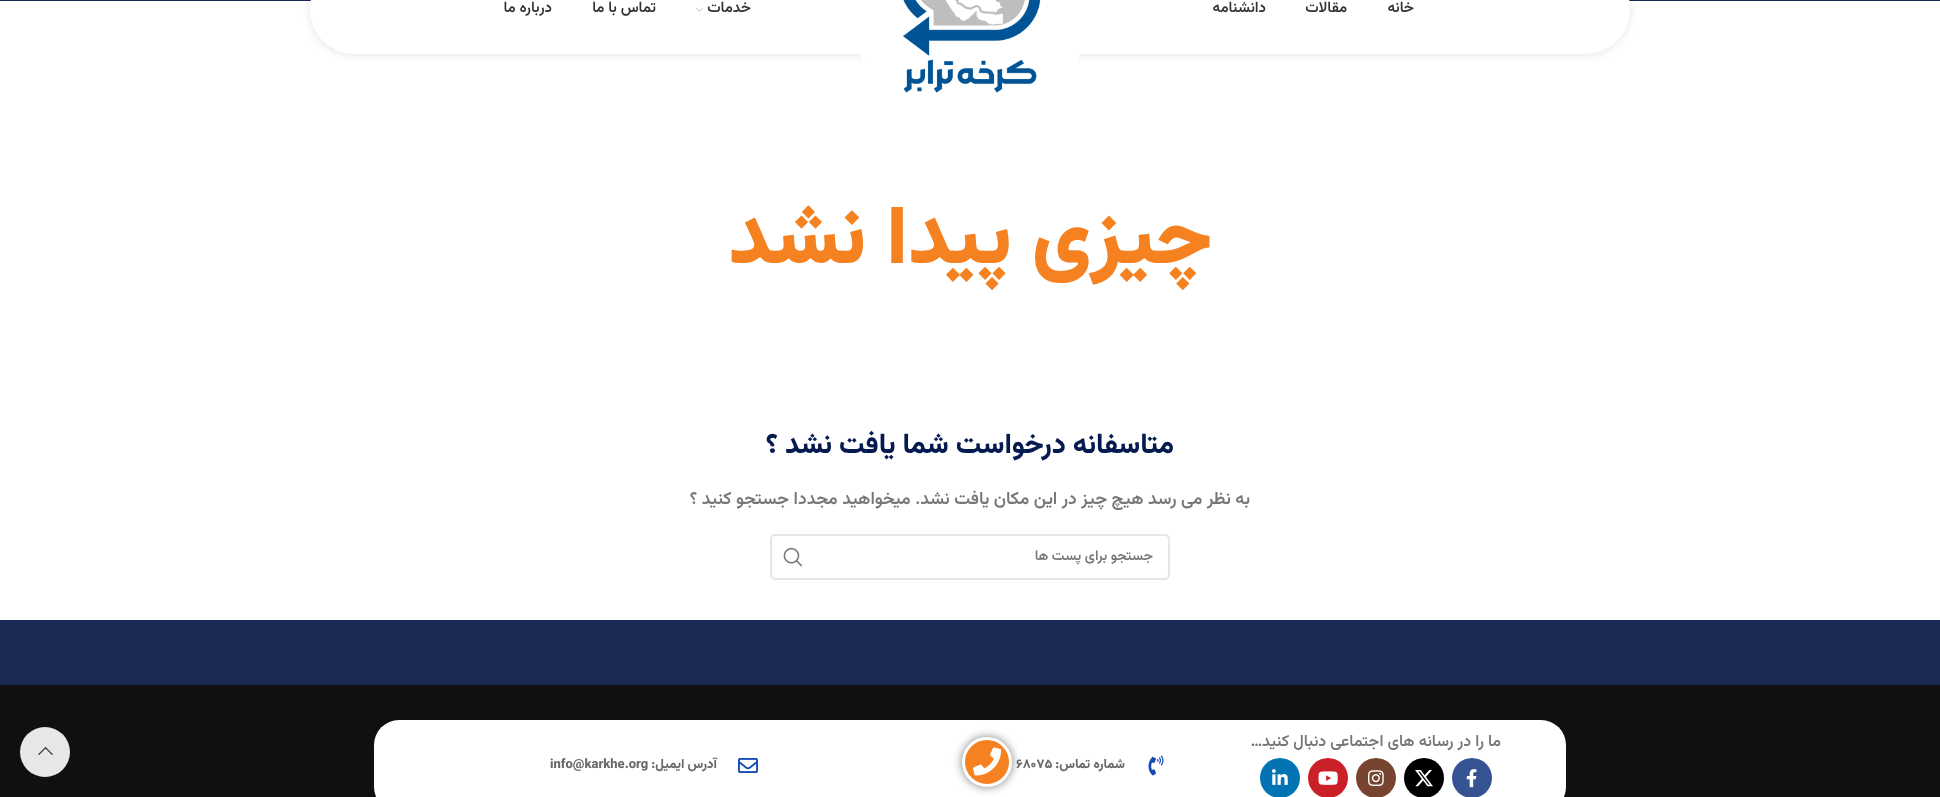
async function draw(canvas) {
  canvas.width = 1940
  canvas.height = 797
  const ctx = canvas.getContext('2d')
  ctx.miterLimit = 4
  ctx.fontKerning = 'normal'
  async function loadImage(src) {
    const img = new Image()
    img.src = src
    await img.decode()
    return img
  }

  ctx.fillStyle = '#fff'
  ctx.fillRect(0, 0, 1940, 797)
  ctx.fillStyle = '#1a2a55'
  ctx.fillRect(0, 0, 1940, 1)
  ctx.fillStyle = '#0000001a'
  ctx.filter = 'blur(4px)'
  ctx.beginPath()
  ctx.roundRect(310, -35, 1320, 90, 44)
  ctx.fill()
  ctx.filter = 'none'
  ctx.fillStyle = '#fff'
  ctx.beginPath()
  ctx.roundRect(310, -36, 1320, 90, 44)
  ctx.fill()
  ctx.direction = 'rtl'
  ctx.font = '600 15px Vazirmatn'
  ctx.fillStyle = '#333'
  ctx.fillText('خانه', 1414, 12)
  ctx.fillText('مقالات', 1347, 12)
  ctx.fillText('دانشنامه', 1266, 12)
  ctx.fillStyle = '#fff'
  ctx.beginPath()
  ctx.arc(970.5, 7.5, 119.5, 0, 2 * Math.PI)
  ctx.fill()
  ctx.drawImage(await loadImage('image0.png'), 903, 0, 138, 93)
  ctx.fillStyle = '#333'
  ctx.fillText('خدمات', 751, 12)
  ctx.drawImage(await loadImage('image1.png'), 696, 7, 7, 5)
  ctx.fillText('تماس با ما', 656, 12)
  ctx.fillText('درباره ما', 552, 12)
  ctx.font = '900 81.5px Vazirmatn'
  ctx.fillStyle = '#f68121'
  ctx.fillText('چیزی پیدا نشد', 1212, 263)
  ctx.font = '800 28px Vazirmatn'
  ctx.fillStyle = '#041a51'
  ctx.fillText('متاسفانه درخواست شما یافت نشد ؟', 1174, 453)
  ctx.font = '600 17.6px Vazirmatn'
  ctx.fillStyle = '#777'
  ctx.fillText('به نظر می رسد هیچ چیز در این مکان یافت نشد. میخواهید مجددا جستجو کنید ؟', 1250, 504)
  ctx.beginPath()
  ctx.roundRect(771, 535, 398, 44, 4)
  ctx.strokeStyle = '#e6e6e6'
  ctx.lineWidth = 2
  ctx.stroke()
  ctx.font = '600 14px Vazirmatn'
  ctx.fillText('جستجو برای پست ها', 1153, 560)
  ctx.drawImage(await loadImage('image2.png'), 783, 547, 20, 20)
  ctx.fillStyle = '#1a2a55'
  ctx.fillRect(0, 620, 1940, 65)
  ctx.fillStyle = '#101010'
  ctx.fillRect(0, 685, 1940, 112)
  ctx.fillStyle = '#fff'
  ctx.beginPath()
  ctx.roundRect(374, 720, 1192, 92, 25)
  ctx.fill()
  ctx.fillStyle = '#00000080'
  ctx.filter = 'blur(5px)'
  ctx.beginPath()
  ctx.roundRect(962, 737, 50, 50, 25)
  ctx.fill()
  ctx.filter = 'none'
  ctx.fillStyle = '#f68121'
  ctx.beginPath()
  ctx.arc(987, 762, 23.5, 0, 2 * Math.PI)
  ctx.fill()
  ctx.strokeStyle = '#fff'
  ctx.lineWidth = 3
  ctx.stroke()
  ctx.drawImage(await loadImage('image3.png'), 973, 747, 29, 29)
  ctx.font = '600 16px Vazirmatn'
  ctx.fillStyle = '#777'
  ctx.fillText('ما را در رسانه های اجتماعی دنبال کنید…', 1501, 746)
  ctx.fillStyle = '#365493'
  ctx.beginPath()
  ctx.arc(1472, 778, 20, 0, 2 * Math.PI)
  ctx.fill()
  ctx.drawImage(await loadImage('image4.png'), 1466, 769, 11, 19)
  ctx.fillStyle = '#000'
  ctx.beginPath()
  ctx.arc(1424, 778, 20, 0, 2 * Math.PI)
  ctx.fill()
  ctx.drawImage(await loadImage('image5.png'), 1415, 770, 18, 17)
  ctx.fillStyle = '#774430'
  ctx.beginPath()
  ctx.arc(1376, 778, 20, 0, 2 * Math.PI)
  ctx.fill()
  ctx.drawImage(await loadImage('image6.png'), 1368, 770, 16, 16)
  ctx.fillStyle = '#cb2027'
  ctx.beginPath()
  ctx.arc(1328, 778, 20, 0, 2 * Math.PI)
  ctx.fill()
  ctx.drawImage(await loadImage('image7.png'), 1318, 771, 20, 14)
  ctx.fillStyle = '#0274b3'
  ctx.beginPath()
  ctx.arc(1280, 778, 20, 0, 2 * Math.PI)
  ctx.fill()
  ctx.drawImage(await loadImage('image8.png'), 1272, 769, 16, 16)
  ctx.drawImage(await loadImage('image9.png'), 1148, 755, 16, 21)
  ctx.font = '800 13px Vazirmatn'
  ctx.fillStyle = '#696969'
  ctx.fillText('شماره تماس:', 1125, 768)
  ctx.direction = 'ltr'
  ctx.fillText('۶۸۰۷۵', 1016, 768)
  ctx.drawImage(await loadImage('image10.png'), 738, 758, 20, 15)
  ctx.direction = 'rtl'
  ctx.fillText('آدرس ایمیل:', 717, 768)
  ctx.direction = 'ltr'
  ctx.fillText('info@karkhe.org', 550, 768)
  ctx.fillStyle = '#e7e7e7'
  ctx.beginPath()
  ctx.arc(45, 752, 25, 0, 2 * Math.PI)
  ctx.fill()
  ctx.drawImage(await loadImage('image11.png'), 38, 746, 15, 9)
}

draw(document.querySelector('canvas'))
